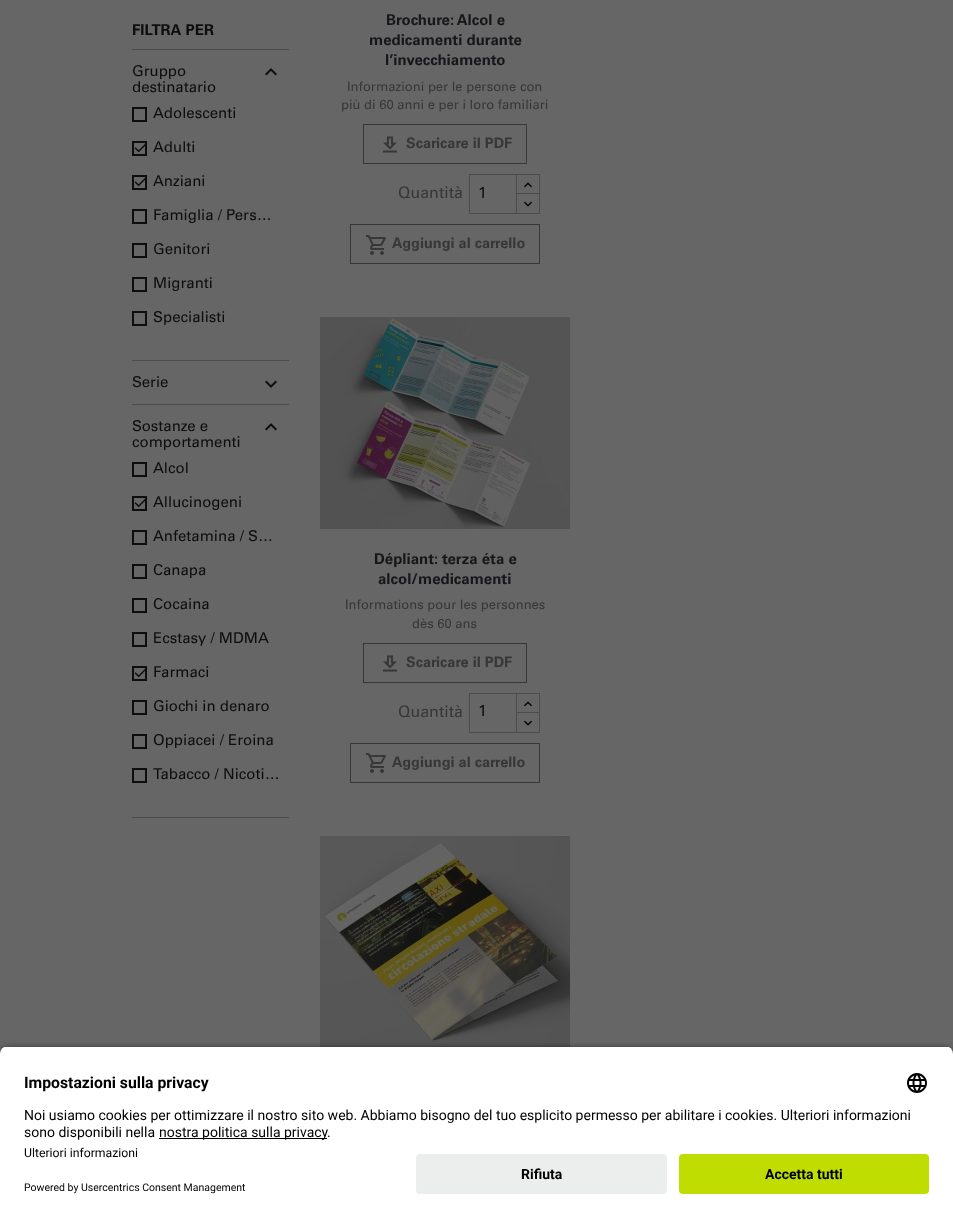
async function draw(canvas) {
  canvas.width = 953
  canvas.height = 1218
  const ctx = canvas.getContext('2d')
  ctx.miterLimit = 4
  ctx.fontKerning = 'normal'
  async function loadImage(src) {
    const img = new Image()
    img.src = src
    await img.decode()
    return img
  }

  ctx.fillStyle = '#666'
  ctx.fillRect(0, 0, 953, 1218)
  ctx.font = 'bold 15px Univers'
  ctx.fillStyle = '#0e0e0e'
  ctx.fillText('FILTRA PER', 132, 35)
  ctx.fillStyle = '#4c4c4c'
  ctx.fillRect(132, 49, 157, 1)
  ctx.fillRect(132, 360, 157, 1)
  ctx.font = '15px Univers'
  ctx.fillStyle = '#0e0e0e'
  ctx.fillText('Gruppo', 132, 76)
  ctx.fillText('destinatario', 132, 92)
  ctx.drawImage(await loadImage('image0.png'), 265, 68, 12, 8)
  ctx.strokeStyle = '#0e0e0e'
  ctx.lineWidth = 2
  ctx.strokeRect(133, 108, 13, 13)
  ctx.fillText('Adolescenti', 153, 118)
  ctx.strokeRect(133, 142, 13, 13)
  ctx.drawImage(await loadImage('image1.png'), 134, 143, 14, 10)
  ctx.fillText('Adulti', 153, 152)
  ctx.strokeRect(133, 176, 13, 13)
  ctx.drawImage(await loadImage('image1.png'), 134, 177, 14, 10)
  ctx.fillText('Anziani', 153, 186)
  ctx.strokeRect(133, 210, 13, 13)
  ctx.fillText('Famiglia / Pers…', 153, 220)
  ctx.strokeRect(133, 244, 13, 13)
  ctx.fillText('Genitori', 153, 254)
  ctx.strokeRect(133, 278, 13, 13)
  ctx.fillText('Migranti', 153, 288)
  ctx.strokeRect(133, 312, 13, 13)
  ctx.fillText('Specialisti', 153, 322)
  ctx.fillStyle = '#4c4c4c'
  ctx.fillRect(132, 404, 157, 1)
  ctx.fillStyle = '#0e0e0e'
  ctx.fillText('Serie', 132, 387)
  ctx.drawImage(await loadImage('image2.png'), 265, 380, 12, 8)
  ctx.fillStyle = '#4c4c4c'
  ctx.fillRect(132, 817, 157, 1)
  ctx.fillStyle = '#0e0e0e'
  ctx.fillText('Sostanze e', 132, 431)
  ctx.fillText('comportamenti', 132, 447)
  ctx.drawImage(await loadImage('image3.png'), 265, 423, 12, 8)
  ctx.strokeRect(133, 463, 13, 13)
  ctx.fillText('Alcol', 153, 473)
  ctx.strokeRect(133, 497, 13, 13)
  ctx.drawImage(await loadImage('image1.png'), 134, 498, 14, 10)
  ctx.fillText('Allucinogeni', 153, 507)
  ctx.strokeRect(133, 531, 13, 13)
  ctx.fillText('Anfetamina / S…', 153, 541)
  ctx.strokeRect(133, 565, 13, 13)
  ctx.fillText('Canapa', 153, 575)
  ctx.strokeRect(133, 599, 13, 13)
  ctx.fillText('Cocaina', 153, 609)
  ctx.strokeRect(133, 633, 13, 13)
  ctx.fillText('Ecstasy / MDMA', 153, 643)
  ctx.strokeRect(133, 667, 13, 13)
  ctx.drawImage(await loadImage('image1.png'), 134, 668, 14, 10)
  ctx.fillText('Farmaci', 153, 677)
  ctx.strokeRect(133, 701, 13, 13)
  ctx.fillText('Giochi in denaro', 153, 711)
  ctx.strokeRect(133, 735, 13, 13)
  ctx.fillText('Oppiacei / Eroina', 153, 745)
  ctx.strokeRect(133, 769, 13, 13)
  ctx.fillText('Tabacco / Nicoti…', 153, 779)
  ctx.font = 'bold 15px Univers'
  ctx.fillStyle = '#16171a'
  ctx.fillText('Brochure: Alcol e', 386, 25)
  ctx.fillText('medicamenti durante', 369, 45)
  ctx.fillText('l’invecchiamento', 385, 65)
  ctx.font = '13px Univers'
  ctx.fillStyle = '#373737'
  ctx.fillText('Informazioni per le persone con', 347, 91)
  ctx.fillText('più di 60 anni e per i loro familiari', 341, 109)
  ctx.strokeStyle = '#373737'
  ctx.lineWidth = 1
  ctx.strokeRect(363.5, 124.5, 163, 39)
  ctx.drawImage(await loadImage('image4.png'), 383, 136, 14, 17)
  ctx.font = 'bold 14.5px Univers'
  ctx.fillText('Scaricare il PDF', 406, 148)
  ctx.font = '16px Univers'
  ctx.fillText('Quantità', 398, 198)
  ctx.strokeStyle = '#4c4c4c'
  ctx.strokeRect(516.5, 174.5, 23, 20)
  ctx.fillStyle = '#666'
  ctx.fillRect(517, 194, 22, 1)
  ctx.strokeRect(516.5, 193.5, 23, 20)
  ctx.strokeRect(469.5, 174.5, 47, 39)
  ctx.fillStyle = '#0e0e0e'
  ctx.fillText('1', 478, 198)
  ctx.drawImage(await loadImage('image5.png'), 524, 182, 8, 6)
  ctx.drawImage(await loadImage('image6.png'), 524, 201, 8, 6)
  ctx.strokeStyle = '#373737'
  ctx.strokeRect(350.5, 224.5, 189, 39)
  ctx.drawImage(await loadImage('image7.png'), 366, 235, 20, 20)
  ctx.font = 'bold 14.5px Univers'
  ctx.fillStyle = '#373737'
  ctx.fillText('Aggiungi al carrello', 392, 248)
  ctx.drawImage(await loadImage('image8.png'), 320, 317, 250, 212)
  ctx.font = 'bold 15px Univers'
  ctx.fillStyle = '#16171a'
  ctx.fillText('Dépliant: terza éta e', 374, 564)
  ctx.fillText('alcol/medicamenti', 378, 584)
  ctx.font = '13px Univers'
  ctx.fillStyle = '#373737'
  ctx.fillText('Informations pour les personnes', 345, 609)
  ctx.fillText('dès 60 ans', 412, 628)
  ctx.strokeRect(363.5, 643.5, 163, 39)
  ctx.drawImage(await loadImage('image9.png'), 383, 655, 14, 17)
  ctx.font = 'bold 14.5px Univers'
  ctx.fillText('Scaricare il PDF', 406, 667)
  ctx.font = '16px Univers'
  ctx.fillText('Quantità', 398, 717)
  ctx.strokeStyle = '#4c4c4c'
  ctx.strokeRect(516.5, 693.5, 23, 20)
  ctx.fillStyle = '#666'
  ctx.fillRect(517, 713, 22, 1)
  ctx.strokeRect(516.5, 712.5, 23, 20)
  ctx.strokeRect(469.5, 693.5, 47, 39)
  ctx.fillStyle = '#0e0e0e'
  ctx.fillText('1', 478, 716)
  ctx.drawImage(await loadImage('image5.png'), 524, 701, 8, 6)
  ctx.drawImage(await loadImage('image6.png'), 524, 720, 8, 6)
  ctx.strokeStyle = '#373737'
  ctx.strokeRect(350.5, 743.5, 189, 39)
  ctx.drawImage(await loadImage('image7.png'), 366, 753, 20, 20)
  ctx.font = 'bold 14.5px Univers'
  ctx.fillStyle = '#373737'
  ctx.fillText('Aggiungi al carrello', 392, 767)
  ctx.drawImage(await loadImage('image10.png'), 320, 836, 250, 211)
  ctx.fillStyle = '#000000cc'
  ctx.filter = 'blur(3.5px)'
  ctx.beginPath()
  ctx.roundRect(0, 1049, 953, 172, 8)
  ctx.fill()
  ctx.filter = 'none'
  ctx.save()
  ctx.beginPath()
  ctx.roundRect(0, 1046, 953, 100, [8, 8, 0, 0])
  ctx.clip()
  ctx.fillStyle = '#fff'
  ctx.fillRect(0, 1047, 953, 99)
  ctx.restore()
  ctx.font = 'bold 15.75px Roboto'
  ctx.fillStyle = '#000'
  ctx.fillText('Impostazioni sulla privacy', 24, 1088)
  ctx.drawImage(await loadImage('image11.png'), 907, 1073, 20, 20)
  ctx.font = '14px Roboto'
  ctx.fillText('Noi usiamo cookies per ottimizzare il nostro sito web. Abbiamo bisogno del tuo esplicito permesso per abilitare i cookies. Ulteriori informazioni', 24, 1120)
  ctx.fillText('sono disponibili nella', 24, 1137)
  ctx.fillRect(159, 1138, 168, 1)
  ctx.fillText('nostra politica sulla privacy', 159, 1137)
  ctx.fillText('.', 327, 1137)
  ctx.fillStyle = '#fff'
  ctx.fillRect(0, 1146, 953, 72)
  ctx.font = '12.25px Roboto'
  ctx.fillStyle = '#000'
  ctx.fillText('Ulteriori informazioni', 24, 1157)
  ctx.font = '10.5px Roboto'
  ctx.fillText('Powered by Usercentrics Consent Management', 24, 1191)
  ctx.fillStyle = '#eceded'
  ctx.beginPath()
  ctx.roundRect(416, 1154, 251, 40, 4)
  ctx.fill()
  ctx.font = 'bold 14px Roboto'
  ctx.fillStyle = '#000'
  ctx.fillText('Rifiuta', 521, 1179)
  ctx.fillStyle = '#bfdd00'
  ctx.beginPath()
  ctx.roundRect(679, 1154, 250, 40, 4)
  ctx.fill()
  ctx.fillStyle = '#000'
  ctx.fillText('Accetta tutti', 765, 1179)
}

draw(document.querySelector('canvas'))
